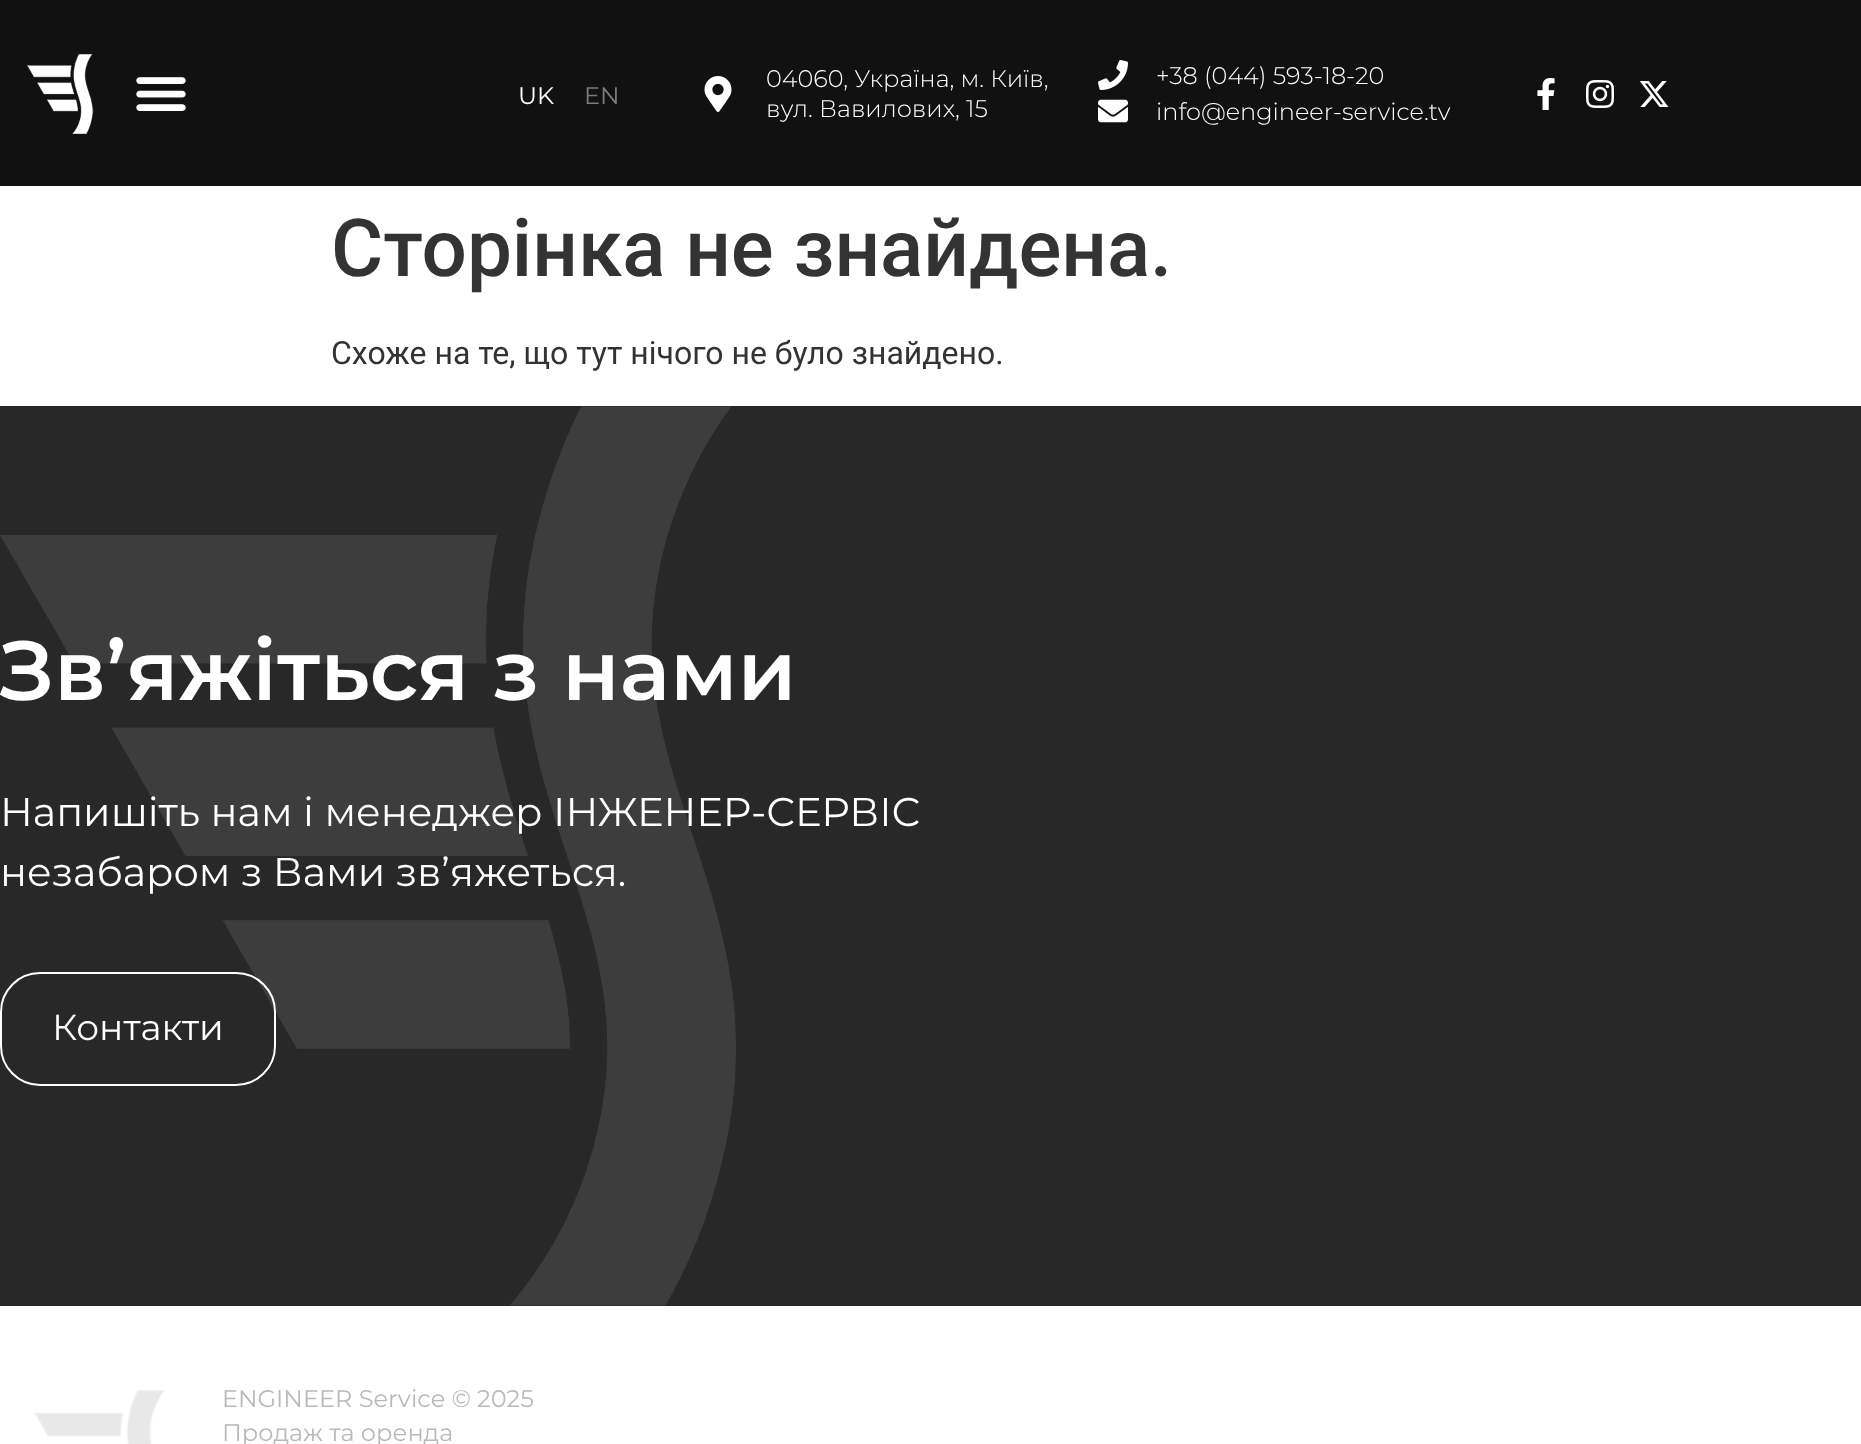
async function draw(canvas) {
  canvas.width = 1861
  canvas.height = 1444
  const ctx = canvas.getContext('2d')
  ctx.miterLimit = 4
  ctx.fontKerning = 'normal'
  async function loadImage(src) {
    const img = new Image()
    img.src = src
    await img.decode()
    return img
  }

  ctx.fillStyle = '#fff'
  ctx.fillRect(0, 0, 1861, 1444)
  ctx.fillStyle = '#111'
  ctx.fillRect(0, 0, 1861, 186)
  ctx.drawImage(await loadImage('image0.png'), 26, 54, 68, 80)
  ctx.drawImage(await loadImage('image1.png'), 136, 77, 50, 34)
  ctx.font = '24px Montserrat'
  ctx.fillStyle = '#fff'
  ctx.fillText('UK', 518, 104)
  ctx.fillStyle = '#7c7c7c'
  ctx.fillText('EN', 584, 104)
  ctx.drawImage(await loadImage('image2.png'), 704, 76, 28, 36)
  ctx.font = '300 24px Montserrat'
  ctx.fillStyle = '#fff'
  ctx.fillText('04060, Україна, м. Київ,', 766, 87)
  ctx.fillText('вул. Вавилових, 15', 766, 117)
  ctx.drawImage(await loadImage('image3.png'), 1098, 60, 30, 30)
  ctx.fillText('+38 (044) 593-18-20', 1156, 84)
  ctx.drawImage(await loadImage('image4.png'), 1098, 99, 30, 24)
  ctx.fillText('info@engineer-service.tv', 1156, 120)
  ctx.drawImage(await loadImage('image5.png'), 1537, 78, 18, 32)
  ctx.drawImage(await loadImage('image6.png'), 1586, 80, 28, 28)
  ctx.drawImage(await loadImage('image7.png'), 1639, 81, 30, 26)
  ctx.font = '500 80px Roboto'
  ctx.fillStyle = '#333'
  ctx.fillText('Сторінка не знайдена.', 331, 276)
  ctx.font = '32px Roboto'
  ctx.fillText('Схоже на те, що тут нічого не було знайдено.', 331, 364)
  ctx.fillStyle = '#282828'
  ctx.fillRect(0, 406, 1861, 900)
  ctx.drawImage(await loadImage('image8.png'), 0, 406, 736, 900)
  ctx.font = '600 84px Montserrat'
  ctx.fillStyle = '#fff'
  ctx.fillText('Зв’яжіться з нами', 0, 700)
  ctx.font = '40px Montserrat'
  ctx.fillText('Напишіть нам і менеджер ІНЖЕНЕР-СЕРВІС', 0, 826)
  ctx.fillText('незабаром з Вами зв’яжеться.', 0, 886)
  ctx.beginPath()
  ctx.roundRect(1, 973, 274, 112, 39)
  ctx.strokeStyle = '#fff'
  ctx.lineWidth = 2
  ctx.stroke()
  ctx.font = '36px Montserrat'
  ctx.fillText('Контакти', 52, 1040)
  ctx.drawImage(await loadImage('image9.png'), 34, 1390, 130, 54)
  ctx.font = '24px Montserrat'
  ctx.fillStyle = '#b9b9b9'
  ctx.fillText('ENGINEER Service © 2025', 222, 1407)
  ctx.fillText('Продаж та оренда', 222, 1441)
}

draw(document.querySelector('canvas'))
